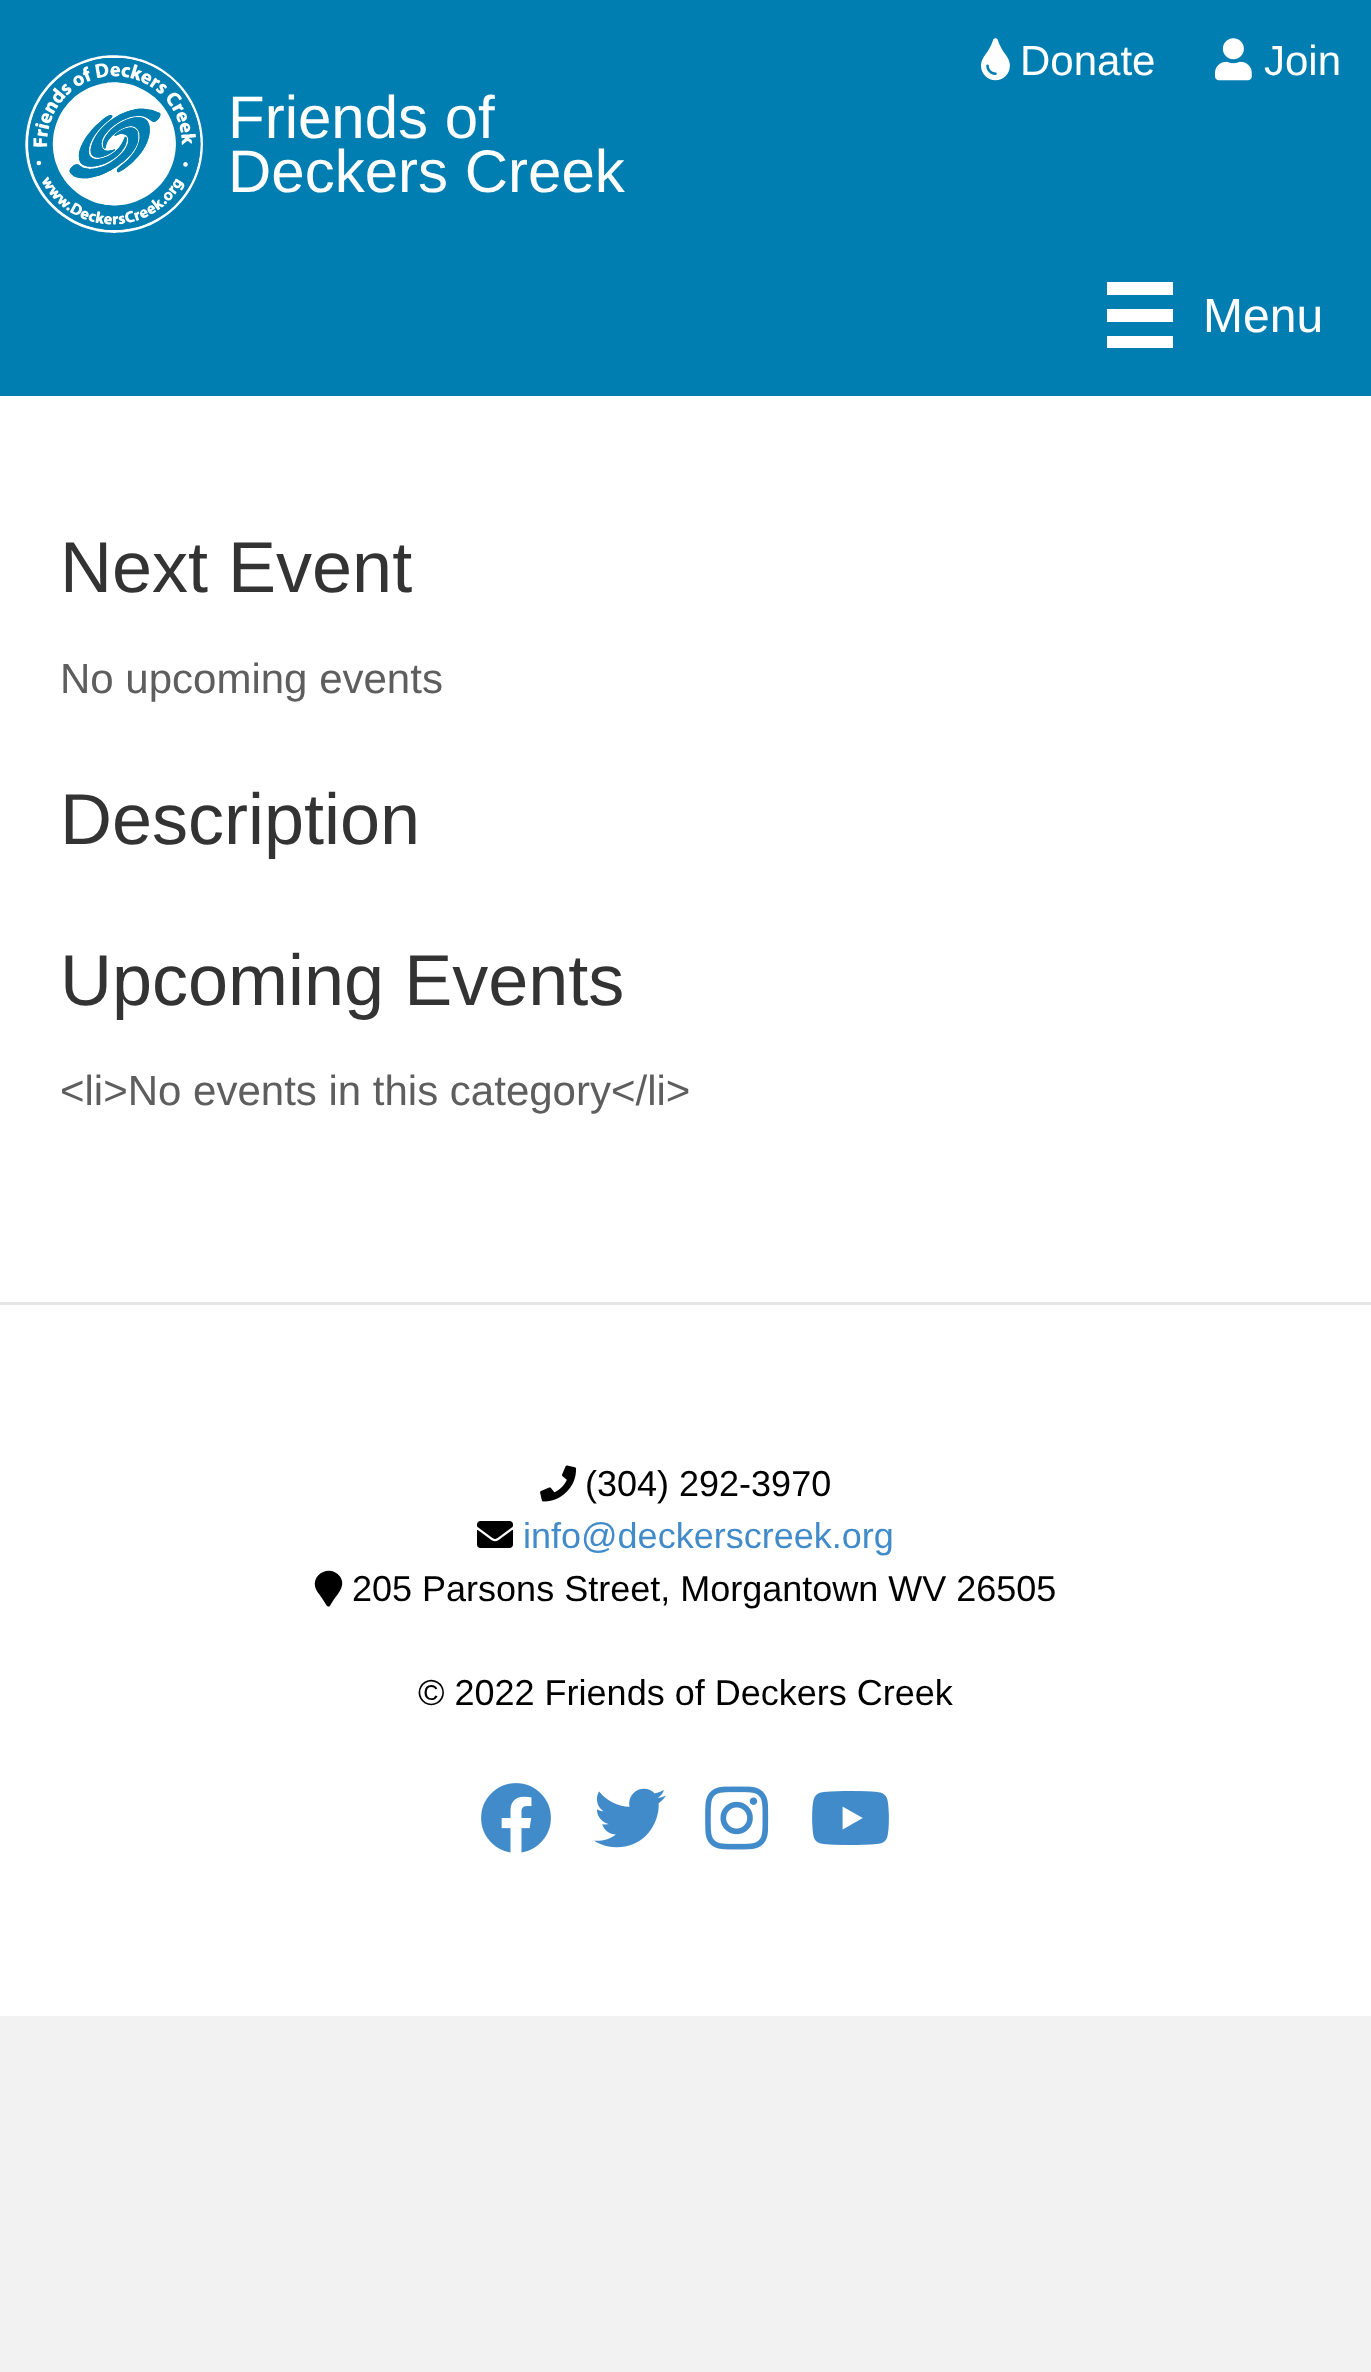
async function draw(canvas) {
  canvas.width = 1371
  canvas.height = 2372
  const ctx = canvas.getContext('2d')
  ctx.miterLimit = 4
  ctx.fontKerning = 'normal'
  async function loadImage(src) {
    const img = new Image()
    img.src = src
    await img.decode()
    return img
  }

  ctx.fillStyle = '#f2f2f2'
  ctx.fillRect(0, 0, 1371, 2372)
  ctx.fillStyle = '#007eb1'
  ctx.fillRect(0, 0, 1371, 396)
  ctx.drawImage(await loadImage('image0.png'), 981, 38, 29, 43)
  ctx.font = '42px Liberation Sans'
  ctx.fillStyle = '#fff'
  ctx.fillText('Donate', 1020, 75)
  ctx.drawImage(await loadImage('image1.png'), 1215, 38, 37, 43)
  ctx.fillText('Join', 1264, 75)
  ctx.drawImage(await loadImage('image2.png'), 25, 55, 179, 178)
  ctx.font = '60px Liberation Sans'
  ctx.fillText('Friends of', 228, 138)
  ctx.fillText('Deckers Creek', 228, 192)
  ctx.fillRect(1107, 282, 66, 13)
  ctx.fillRect(1107, 309, 66, 13)
  ctx.fillRect(1107, 336, 66, 12)
  ctx.font = '48px Liberation Sans'
  ctx.fillText('Menu', 1203, 332)
  ctx.fillRect(0, 396, 1371, 906)
  ctx.font = '72px Liberation Sans'
  ctx.fillStyle = '#333'
  ctx.fillText('Next Event', 60, 592)
  ctx.font = '42px Liberation Sans'
  ctx.fillStyle = '#5e5e5e'
  ctx.fillText('No upcoming events', 60, 693)
  ctx.font = '72px Liberation Sans'
  ctx.fillStyle = '#333'
  ctx.fillText('Description', 60, 844)
  ctx.fillText('Upcoming Events', 60, 1005)
  ctx.font = '42px Liberation Sans'
  ctx.fillStyle = '#5e5e5e'
  ctx.fillText('<li>No events in this category<\/li>', 60, 1105)
  ctx.fillStyle = '#fff'
  ctx.fillRect(0, 1305, 1371, 711)
  ctx.fillStyle = '#e6e6e6'
  ctx.fillRect(0, 1302, 1371, 3)
  ctx.drawImage(await loadImage('image3.png'), 540, 1465, 37, 37)
  ctx.font = '36px Liberation Sans'
  ctx.fillStyle = '#000'
  ctx.fillText('(304) 292-3970', 585, 1496)
  ctx.drawImage(await loadImage('image4.png'), 477, 1521, 36, 27)
  ctx.fillStyle = '#428bca'
  ctx.fillText('info@deckerscreek.org', 523, 1548)
  ctx.fillStyle = '#000'
  ctx.beginPath()
  ctx.moveTo(327, 1606)
  ctx.lineTo(321.5, 1597.5)
  ctx.bezierCurveTo(319, 1594, 316, 1590.5, 315, 1586.5)
  ctx.bezierCurveTo(312.5, 1572.5, 331.5, 1564.5, 340, 1576.5)
  ctx.bezierCurveTo(346, 1585.5, 338.5, 1593, 333.5, 1600)
  ctx.lineTo(329.5, 1606.5)
  ctx.bezierCurveTo(328.5, 1606.5, 327.5, 1606.5, 327, 1606)
  ctx.closePath()
  ctx.fill()
  ctx.fillText('205 Parsons Street, Morgantown WV 26505', 352, 1601)
  ctx.fillText('© 2022 Friends of Deckers Creek', 418, 1705)
  ctx.drawImage(await loadImage('image5.png'), 481, 1783, 70, 70)
  ctx.drawImage(await loadImage('image6.png'), 594, 1788, 72, 60)
  ctx.drawImage(await loadImage('image7.png'), 705, 1786, 64, 64)
  ctx.drawImage(await loadImage('image8.png'), 812, 1791, 77, 54)
}

draw(document.querySelector('canvas'))
